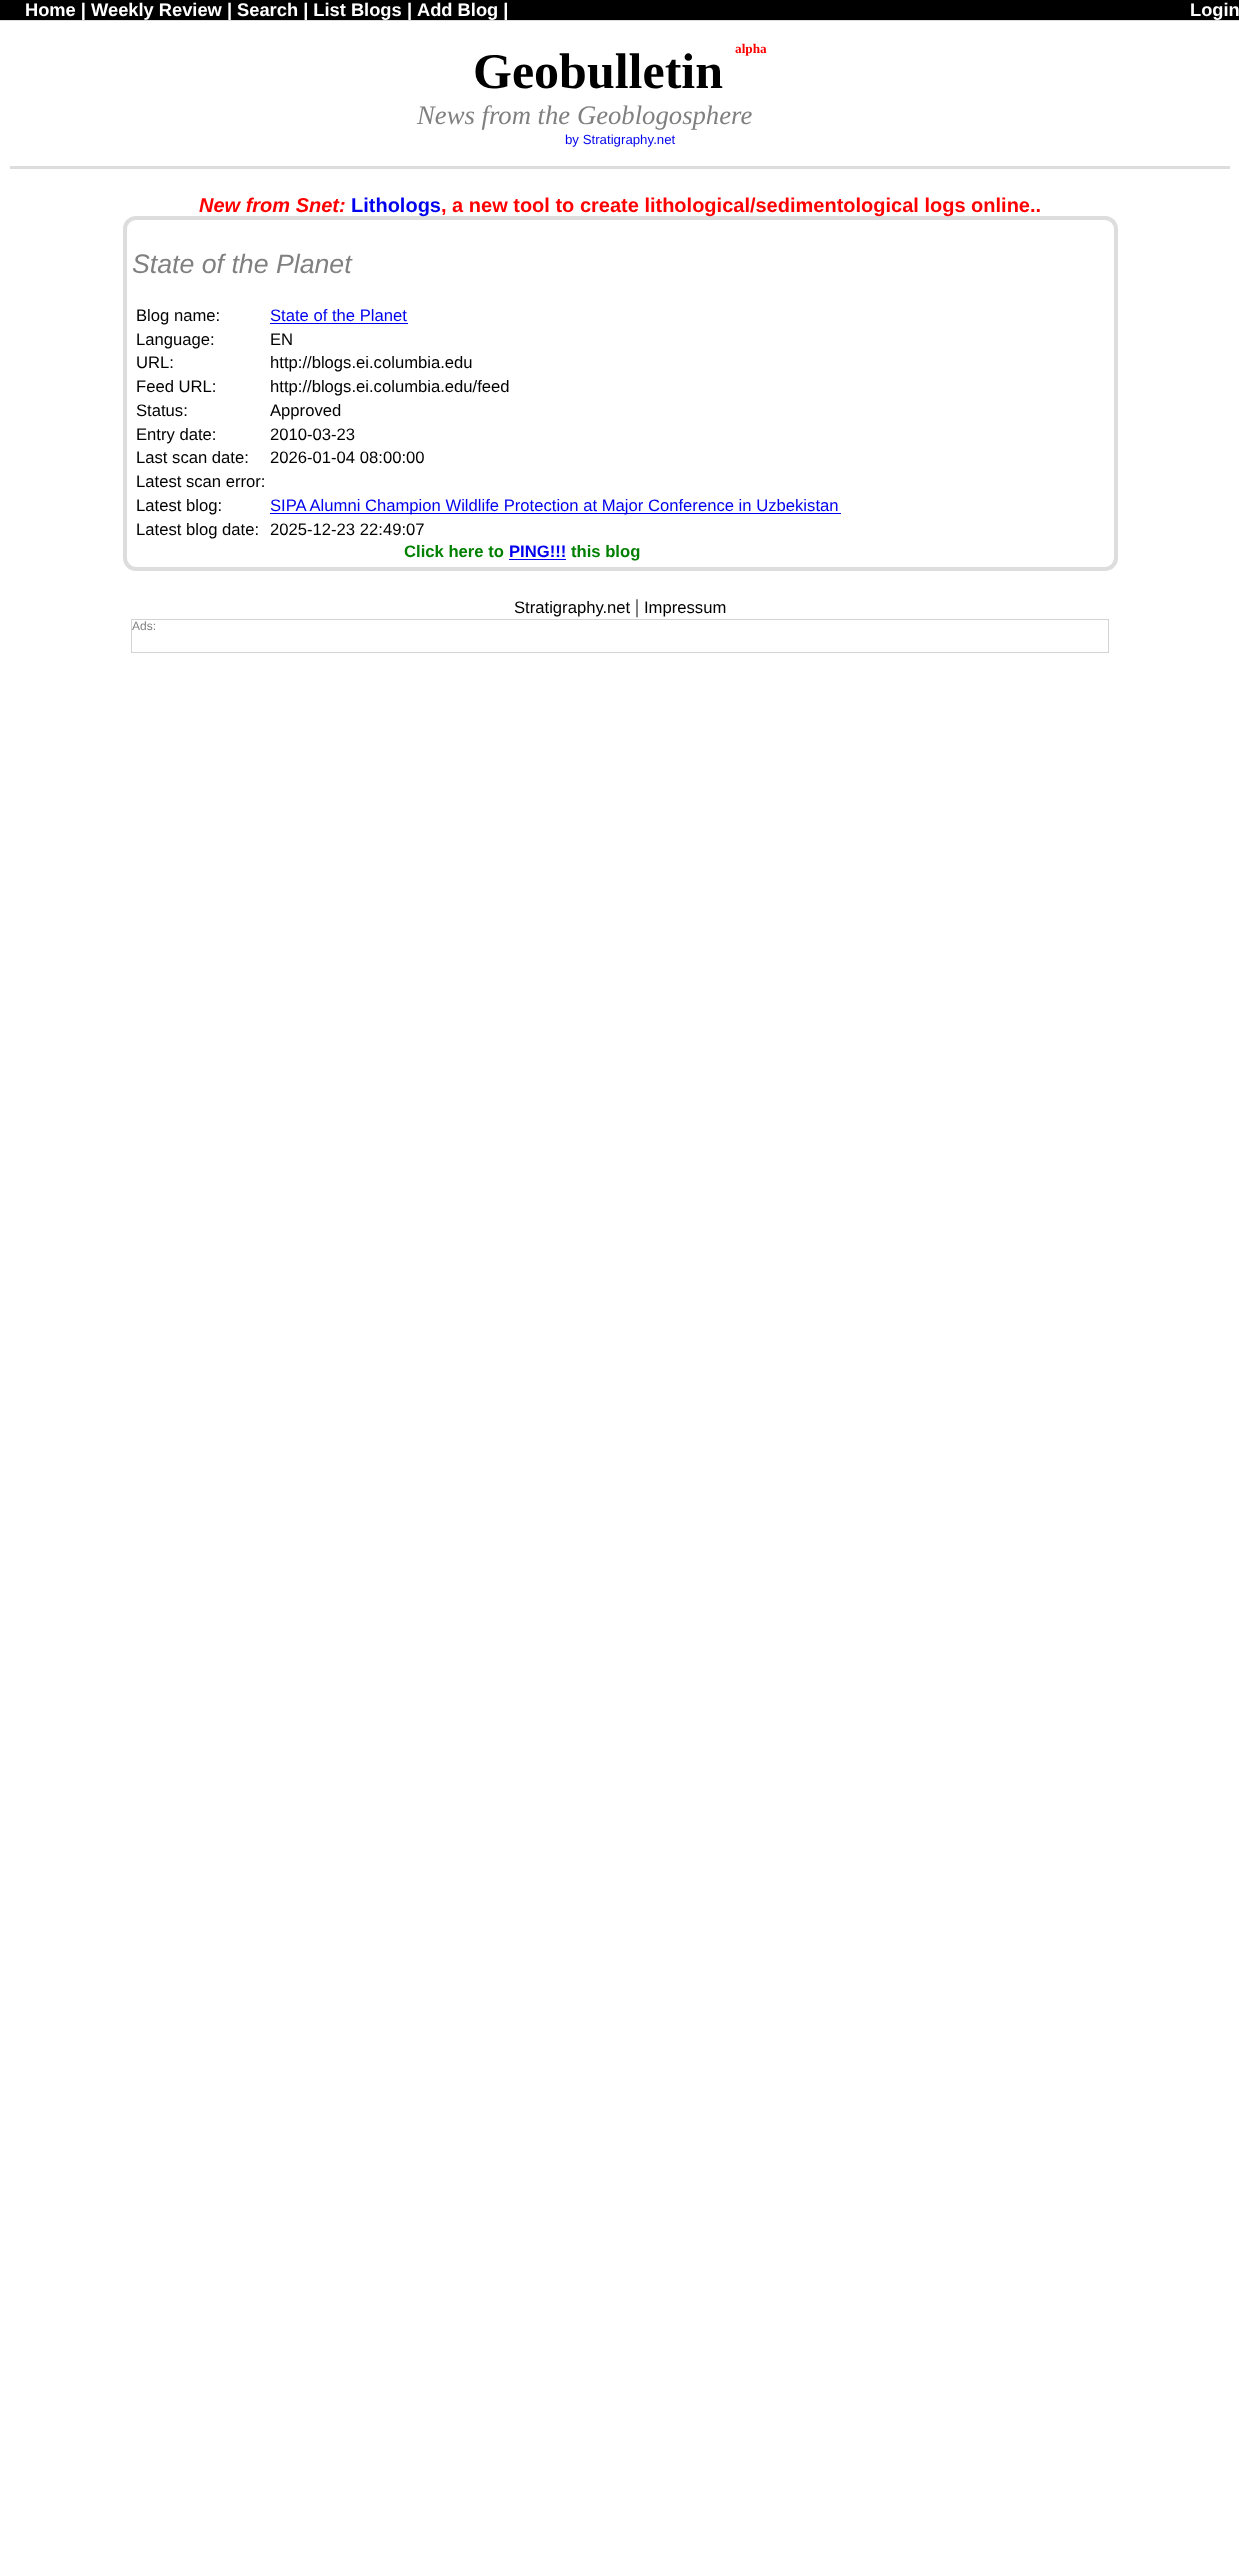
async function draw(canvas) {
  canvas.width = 1239
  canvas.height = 2555
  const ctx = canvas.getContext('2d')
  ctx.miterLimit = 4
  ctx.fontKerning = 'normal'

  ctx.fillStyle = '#fff'
  ctx.fillRect(0, 0, 1239, 2555)
  ctx.fillStyle = '#000'
  ctx.fillRect(0, 0, 1239, 20)
  ctx.fillStyle = '#ddd'
  ctx.fillRect(0, 20, 1239, 1)
  ctx.font = 'bold 18.3px Liberation Sans'
  ctx.fillStyle = '#fff'
  ctx.fillText('Home | Weekly Review | Search | List Blogs', 25, 16)
  ctx.fillText('|', 407, 16)
  ctx.fillText('Add Blog |', 417, 16)
  ctx.fillText('Login', 1190, 16)
  ctx.fillStyle = '#ddd'
  ctx.fillRect(10, 166, 1220, 3)
  ctx.font = 'bold 13.25px Liberation Serif'
  ctx.fillStyle = '#f00'
  ctx.fillText('alpha', 735, 53)
  ctx.font = 'bold 50px Liberation Serif'
  ctx.fillStyle = '#000'
  ctx.fillText('Geobulletin', 473, 88)
  ctx.font = 'italic 26.7px Liberation Serif'
  ctx.fillStyle = '#808080'
  ctx.fillText('News from the Geoblogosphere', 417, 124)
  ctx.font = '13.25px Liberation Sans'
  ctx.fillStyle = '#00e'
  ctx.fillText('by Stratigraphy.net', 565, 144)
  ctx.font = 'italic bold 20px Liberation Sans'
  ctx.fillStyle = '#f00'
  ctx.fillText('New from Snet:', 199, 212)
  ctx.beginPath()
  ctx.roundRect(125, 218, 991, 351, 11)
  ctx.strokeStyle = '#ddd'
  ctx.lineWidth = 4
  ctx.stroke()
  ctx.font = 'bold 20px Liberation Sans'
  ctx.fillStyle = '#00e'
  ctx.fillText('Lithologs', 351, 212)
  ctx.fillStyle = '#f00'
  ctx.fillText(', a new tool to create lithological/sedimentological logs online..', 441, 212)
  ctx.font = 'italic 26.7px Liberation Sans'
  ctx.fillStyle = '#808080'
  ctx.fillText('State of the Planet', 132, 273)
  ctx.font = '16.65px Liberation Sans'
  ctx.fillStyle = '#000'
  ctx.fillText('Blog name:', 136, 321)
  ctx.fillStyle = '#00e'
  ctx.fillText('State of the Planet', 270, 321)
  ctx.fillRect(270, 323, 138, 1)
  ctx.fillStyle = '#000'
  ctx.fillText('Language:', 136, 345)
  ctx.fillText('EN', 270, 345)
  ctx.fillText('URL:', 136, 368)
  ctx.fillText('http://blogs.ei.columbia.edu', 270, 368)
  ctx.fillText('Feed URL:', 136, 392)
  ctx.fillText('http://blogs.ei.columbia.edu/feed', 270, 392)
  ctx.fillText('Status:', 136, 416)
  ctx.fillText('Approved', 270, 416)
  ctx.fillText('Entry date:', 136, 440)
  ctx.fillText('2010-03-23', 270, 440)
  ctx.fillText('Last scan date:', 136, 463)
  ctx.fillText('2026-01-04 08:00:00', 270, 463)
  ctx.fillText('Latest scan error:', 136, 487)
  ctx.fillText('Latest blog:', 136, 511)
  ctx.fillStyle = '#00e'
  ctx.fillRect(270, 513, 571, 1)
  ctx.fillText('SIPA Alumni Champion Wildlife Protection at Major Conference in Uzbekistan', 270, 511)
  ctx.fillStyle = '#000'
  ctx.fillText('Latest blog date:', 136, 535)
  ctx.fillText('2025-12-23 22:49:07', 270, 535)
  ctx.font = 'bold 16.65px Liberation Sans'
  ctx.fillStyle = '#008000'
  ctx.fillText('Click here to', 404, 557)
  ctx.fillStyle = '#00e'
  ctx.fillText('PING!!!', 509, 557)
  ctx.fillRect(509, 559, 57, 1)
  ctx.fillStyle = '#008000'
  ctx.fillText('this blog', 571, 557)
  ctx.font = '16.65px Liberation Sans'
  ctx.fillStyle = '#000'
  ctx.fillText('Stratigraphy.net', 514, 613)
  ctx.font = '20px Liberation Serif'
  ctx.fillText('|', 635, 613)
  ctx.font = '16.65px Liberation Sans'
  ctx.fillText('Impressum', 644, 613)
  ctx.strokeStyle = '#d3d3d3'
  ctx.lineWidth = 1
  ctx.strokeRect(131.5, 619.5, 977, 33)
  ctx.font = '12px Liberation Sans'
  ctx.fillStyle = '#808080'
  ctx.fillText('Ads:', 132, 630)
}

draw(document.querySelector('canvas'))
